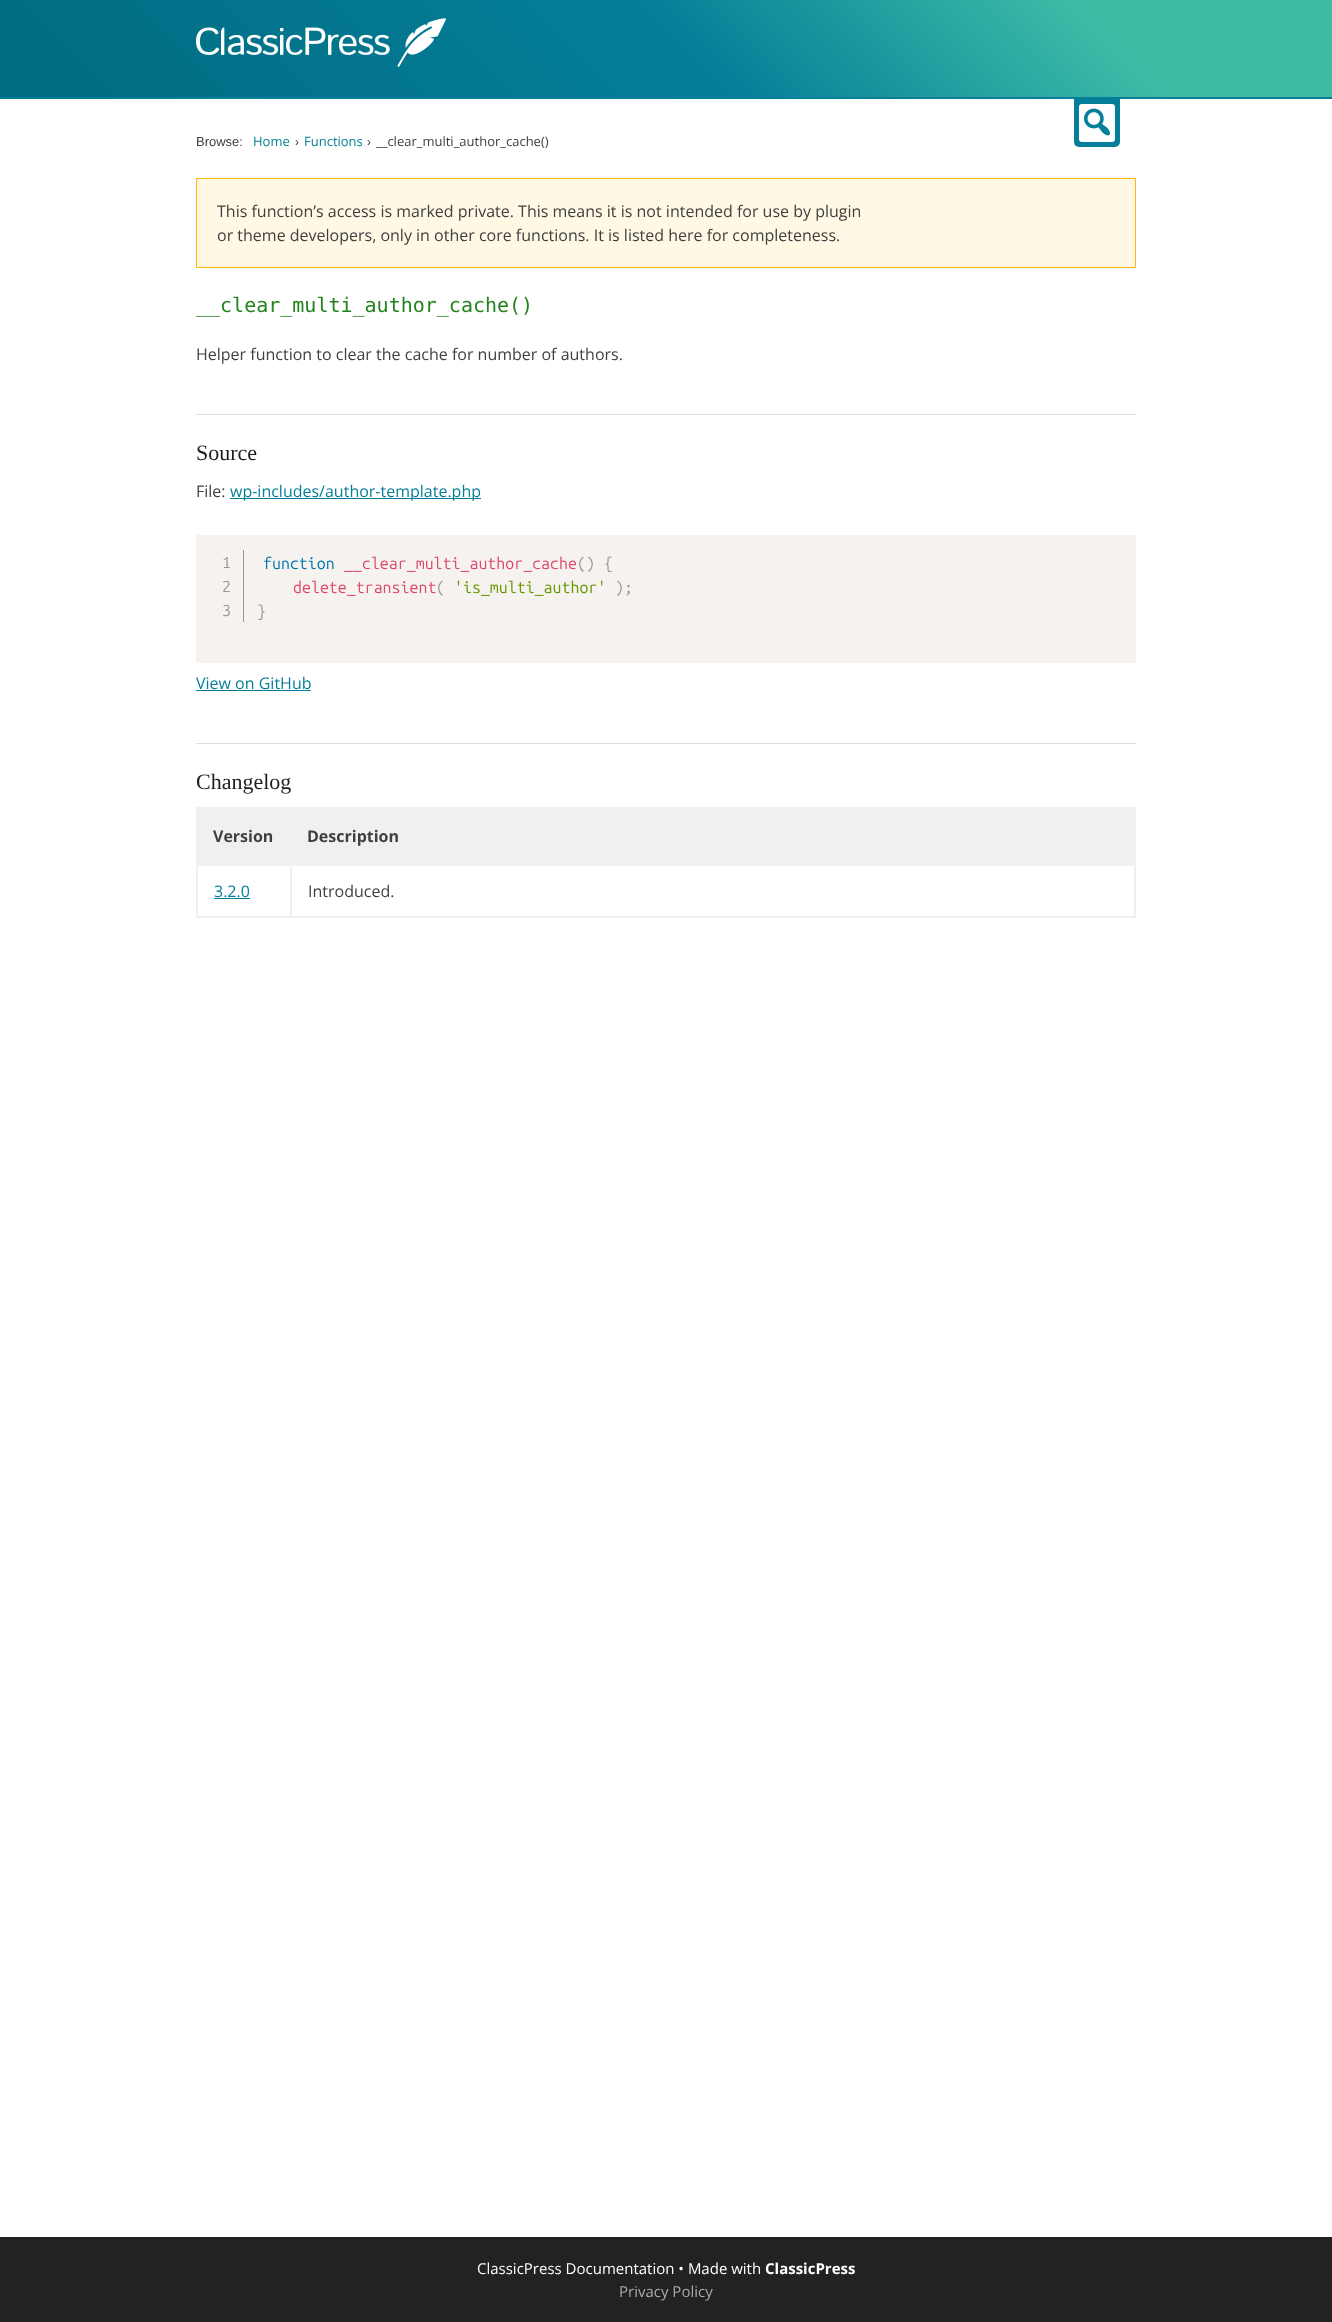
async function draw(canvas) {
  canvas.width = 1332
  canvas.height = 2322
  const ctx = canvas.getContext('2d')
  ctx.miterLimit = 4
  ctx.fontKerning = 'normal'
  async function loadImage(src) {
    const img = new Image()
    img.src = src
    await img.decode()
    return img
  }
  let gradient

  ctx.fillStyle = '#fff'
  ctx.fillRect(0, 0, 1332, 2322)
  gradient = ctx.createLinearGradient(1023, -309, 309, 406)
  gradient.addColorStop(0.18, '#3ebca6')
  gradient.addColorStop(0.48, '#057f99')
  gradient.addColorStop(1, '#006b81')
  ctx.fillStyle = gradient
  ctx.fillRect(0, 0, 1332, 97)
  ctx.drawImage(await loadImage('image0.png'), 196, 18, 250, 49)
  ctx.fillStyle = '#057f99'
  ctx.fillRect(0, 97, 1332, 2)
  ctx.beginPath()
  ctx.roundRect(1074, 99, 46, 48, [0, 0, 5, 5])
  ctx.fill()
  ctx.fillStyle = '#fff'
  ctx.beginPath()
  ctx.roundRect(1079, 104, 36, 38, 3)
  ctx.fill()
  ctx.drawImage(await loadImage('image1.png'), 1084, 108, 26, 28)
  ctx.font = '13px Liberation Sans'
  ctx.fillStyle = '#404040'
  ctx.fillText('Browse:', 196, 146)
  ctx.font = '13px Open Sans'
  ctx.fillStyle = '#057f99'
  ctx.fillText('Home', 253, 146)
  ctx.fillStyle = '#404040'
  ctx.fillText('›', 295, 146)
  ctx.fillStyle = '#057f99'
  ctx.fillText('Functions', 304, 146)
  ctx.fillStyle = '#404040'
  ctx.fillText('›', 367, 146)
  ctx.fillText('__clear_multi_author_cache()', 376, 146)
  ctx.fillStyle = '#fff8e5'
  ctx.beginPath()
  ctx.rect(196.5, 178.5, 939, 89)
  ctx.fill()
  ctx.strokeStyle = '#ffb900'
  ctx.stroke()
  ctx.font = '16px Open Sans'
  ctx.fillStyle = '#404040'
  ctx.fillText('This function’s access is marked private. This means it is not intended for use by plugin', 217, 217)
  ctx.fillText('or theme developers, only in other core functions. It is listed here for completeness.', 217, 241)
  ctx.font = '20px DejaVu Sans Mono'
  ctx.fillStyle = '#24831d'
  ctx.fillText('__clear_multi_author_cache()', 196, 312)
  ctx.font = '16px Open Sans'
  ctx.fillStyle = '#404040'
  ctx.fillText('Helper function to clear the cache for number of authors.', 196, 360)
  ctx.fillStyle = '#dfdfdf'
  ctx.fillRect(196, 414, 940, 1)
  ctx.font = '22px Liberation Serif'
  ctx.fillStyle = '#1e1e1e'
  ctx.fillText('Source', 196, 460)
  ctx.font = '16px Open Sans'
  ctx.fillStyle = '#404040'
  ctx.fillText('File:', 196, 497)
  ctx.fillStyle = '#057f99'
  ctx.fillRect(230, 498, 251, 1)
  ctx.fillText('wp-includes/author-template.php', 230, 497)
  ctx.fillStyle = '#f5f2f0'
  ctx.fillRect(196, 535, 940, 128)
  ctx.fillStyle = '#999'
  ctx.fillRect(243, 550, 1, 72)
  ctx.letterSpacing = '-1px'
  ctx.font = '16px Ubuntu Mono'
  ctx.fillText('1', 222, 568)
  ctx.fillText('2', 222, 592)
  ctx.fillText('3', 222, 616)
  ctx.letterSpacing = '0px'
  ctx.fillStyle = '#07a'
  ctx.fillText('function', 263, 569)
  ctx.fillStyle = '#dd4a68'
  ctx.fillText('__clear_multi_author_cache', 344, 569)
  ctx.fillStyle = '#999'
  ctx.fillText('() {', 577, 569)
  ctx.fillStyle = '#dd4a68'
  ctx.fillText('delete_transient', 293, 593)
  ctx.fillStyle = '#999'
  ctx.fillText('(', 436, 593)
  ctx.fillStyle = '#690'
  ctx.fillText('\'is_multi_author\'', 454, 593)
  ctx.fillStyle = '#999'
  ctx.fillText(');', 615, 593)
  ctx.fillText('}', 257, 617)
  ctx.font = '16px Open Sans'
  ctx.fillStyle = '#057f99'
  ctx.fillText('View on GitHub', 196, 689)
  ctx.fillRect(196, 690, 115, 1)
  ctx.fillStyle = '#dfdfdf'
  ctx.fillRect(196, 743, 940, 1)
  ctx.font = '22px Liberation Serif'
  ctx.fillStyle = '#1e1e1e'
  ctx.fillText('Changelog', 196, 789)
  ctx.strokeStyle = '#f0f0f0'
  ctx.strokeRect(196.5, 807.5, 939, 110)
  ctx.fillStyle = '#f0f0f0'
  ctx.fillRect(197, 808, 938, 57)
  ctx.font = 'bold 16px Open Sans'
  ctx.fillStyle = '#404040'
  ctx.fillText('Version', 213, 842)
  ctx.fillText('Description', 307, 842)
  ctx.strokeRect(197.5, 865.5, 93, 51)
  ctx.font = '16px Open Sans'
  ctx.fillStyle = '#057f99'
  ctx.fillText('3.2.0', 214, 897)
  ctx.fillRect(214, 898, 36, 1)
  ctx.strokeRect(291.5, 865.5, 843, 51)
  ctx.fillStyle = '#404040'
  ctx.fillText('Introduced.', 308, 897)
  ctx.fillStyle = '#222'
  ctx.fillRect(0, 2237, 1332, 85)
  ctx.font = '15px Open Sans'
  ctx.fillStyle = '#fff'
  ctx.fillText('ClassicPress Documentation • Made with', 477, 2274)
  ctx.font = 'bold 15px Open Sans'
  ctx.fillText('ClassicPress', 765, 2274)
  ctx.font = '15px Open Sans'
  ctx.fillStyle = '#aaa'
  ctx.fillText('Privacy Policy', 619, 2297)
}

draw(document.querySelector('canvas'))
